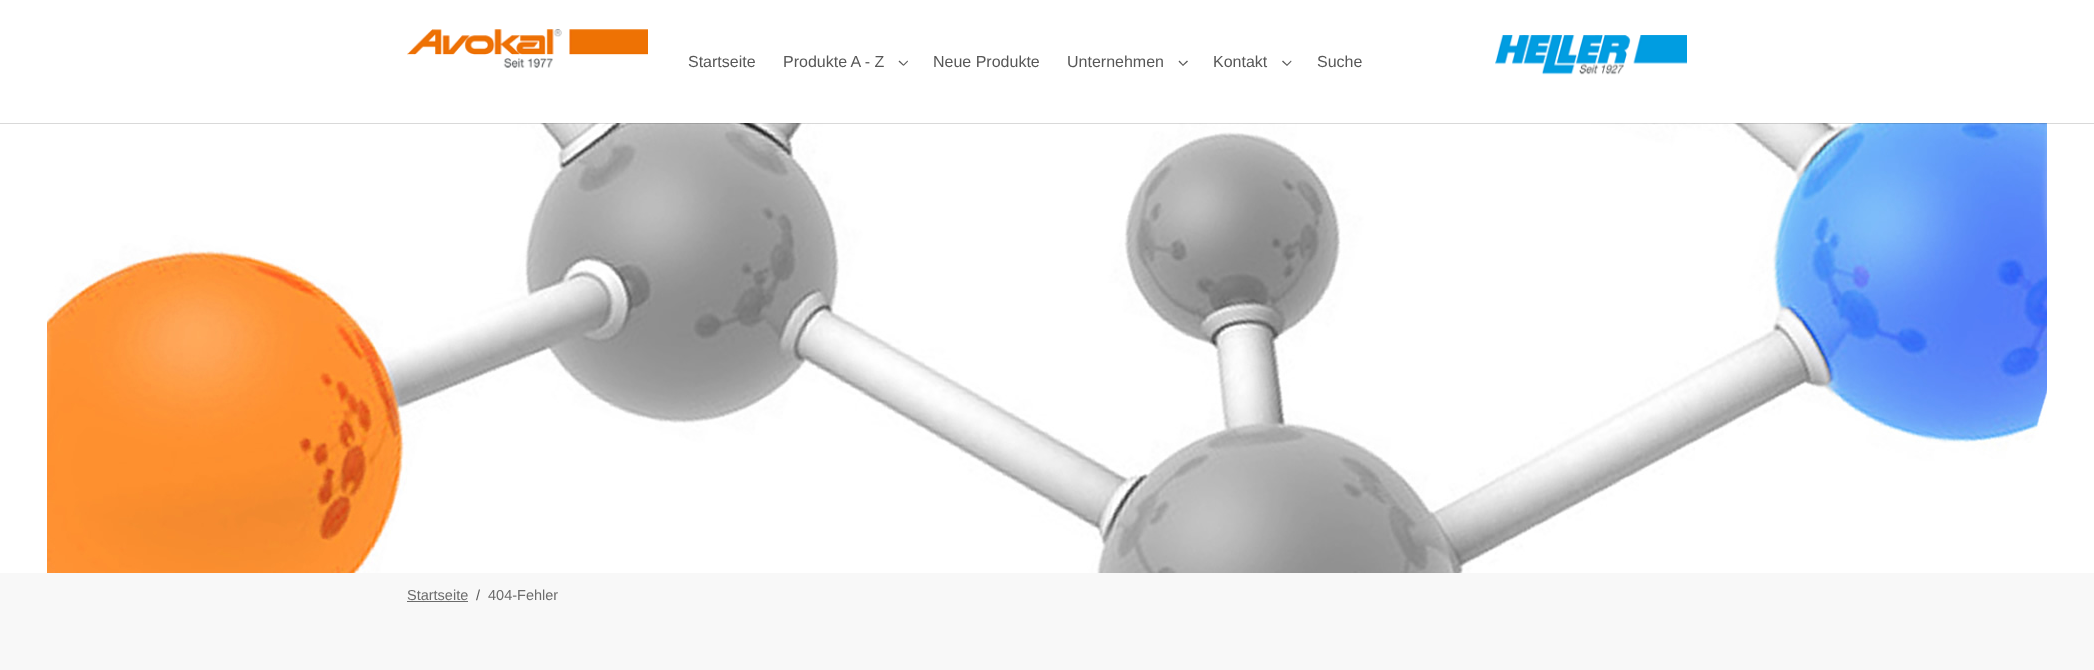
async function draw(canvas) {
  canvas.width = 2094
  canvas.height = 670
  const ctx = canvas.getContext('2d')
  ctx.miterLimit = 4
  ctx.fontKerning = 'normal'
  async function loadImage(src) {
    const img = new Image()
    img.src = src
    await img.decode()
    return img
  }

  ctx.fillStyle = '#fff'
  ctx.fillRect(0, 0, 2094, 670)
  ctx.drawImage(await loadImage('image2.png'), 47, 123, 2000, 450)
  ctx.fillStyle = '#00000026'
  ctx.fillRect(0, 123, 2094, 1)
  ctx.drawImage(await loadImage('image0.png'), 407, 29, 241, 39)
  ctx.font = '16px Liberation Sans'
  ctx.fillStyle = '#575757'
  ctx.fillText('Startseite', 688, 67)
  ctx.fillText('Produkte A - Z', 783, 67)
  ctx.fillStyle = '#595959'
  ctx.beginPath()
  ctx.moveTo(903.5, 66)
  ctx.lineTo(898.5, 61.5)
  ctx.lineTo(899.5, 60.5)
  ctx.lineTo(903.5, 64.5)
  ctx.closePath()
  ctx.fill()
  ctx.beginPath()
  ctx.moveTo(908, 61.5)
  ctx.lineTo(903.5, 66)
  ctx.lineTo(903.5, 64.5)
  ctx.lineTo(907.5, 60.5)
  ctx.closePath()
  ctx.fill()
  ctx.fillStyle = '#575757'
  ctx.fillText('Neue Produkte', 933, 67)
  ctx.fillText('Unternehmen', 1067, 67)
  ctx.fillStyle = '#595959'
  ctx.beginPath()
  ctx.moveTo(1183, 66)
  ctx.lineTo(1178.5, 61.5)
  ctx.lineTo(1179.5, 60.5)
  ctx.lineTo(1183, 64.5)
  ctx.closePath()
  ctx.moveTo(1188, 61.5)
  ctx.lineTo(1183, 66)
  ctx.lineTo(1183, 64.5)
  ctx.lineTo(1187, 60.5)
  ctx.closePath()
  ctx.fill()
  ctx.fillStyle = '#575757'
  ctx.fillText('Kontakt', 1213, 67)
  ctx.fillStyle = '#595959'
  ctx.beginPath()
  ctx.moveTo(1287, 66)
  ctx.lineTo(1282, 61.5)
  ctx.lineTo(1283, 60.5)
  ctx.lineTo(1287, 64.5)
  ctx.closePath()
  ctx.moveTo(1291.5, 61.5)
  ctx.lineTo(1287, 66)
  ctx.lineTo(1287, 64.5)
  ctx.lineTo(1291, 60.5)
  ctx.closePath()
  ctx.fill()
  ctx.fillStyle = '#575757'
  ctx.fillText('Suche', 1317, 67)
  ctx.drawImage(await loadImage('image1.png'), 1495, 35, 192, 40)
  ctx.fillStyle = '#f8f8f8'
  ctx.fillRect(0, 573, 2094, 97)
  ctx.font = '14.5px Liberation Sans'
  ctx.fillStyle = '#6c6c6c'
  ctx.fillText('Startseite', 407, 600)
  ctx.fillRect(407, 601, 61, 1)
  ctx.fillStyle = '#575757'
  ctx.fillText('/', 476, 600)
  ctx.fillStyle = '#6c6c6c'
  ctx.fillText('404-Fehler', 488, 600)
}

draw(document.querySelector('canvas'))
